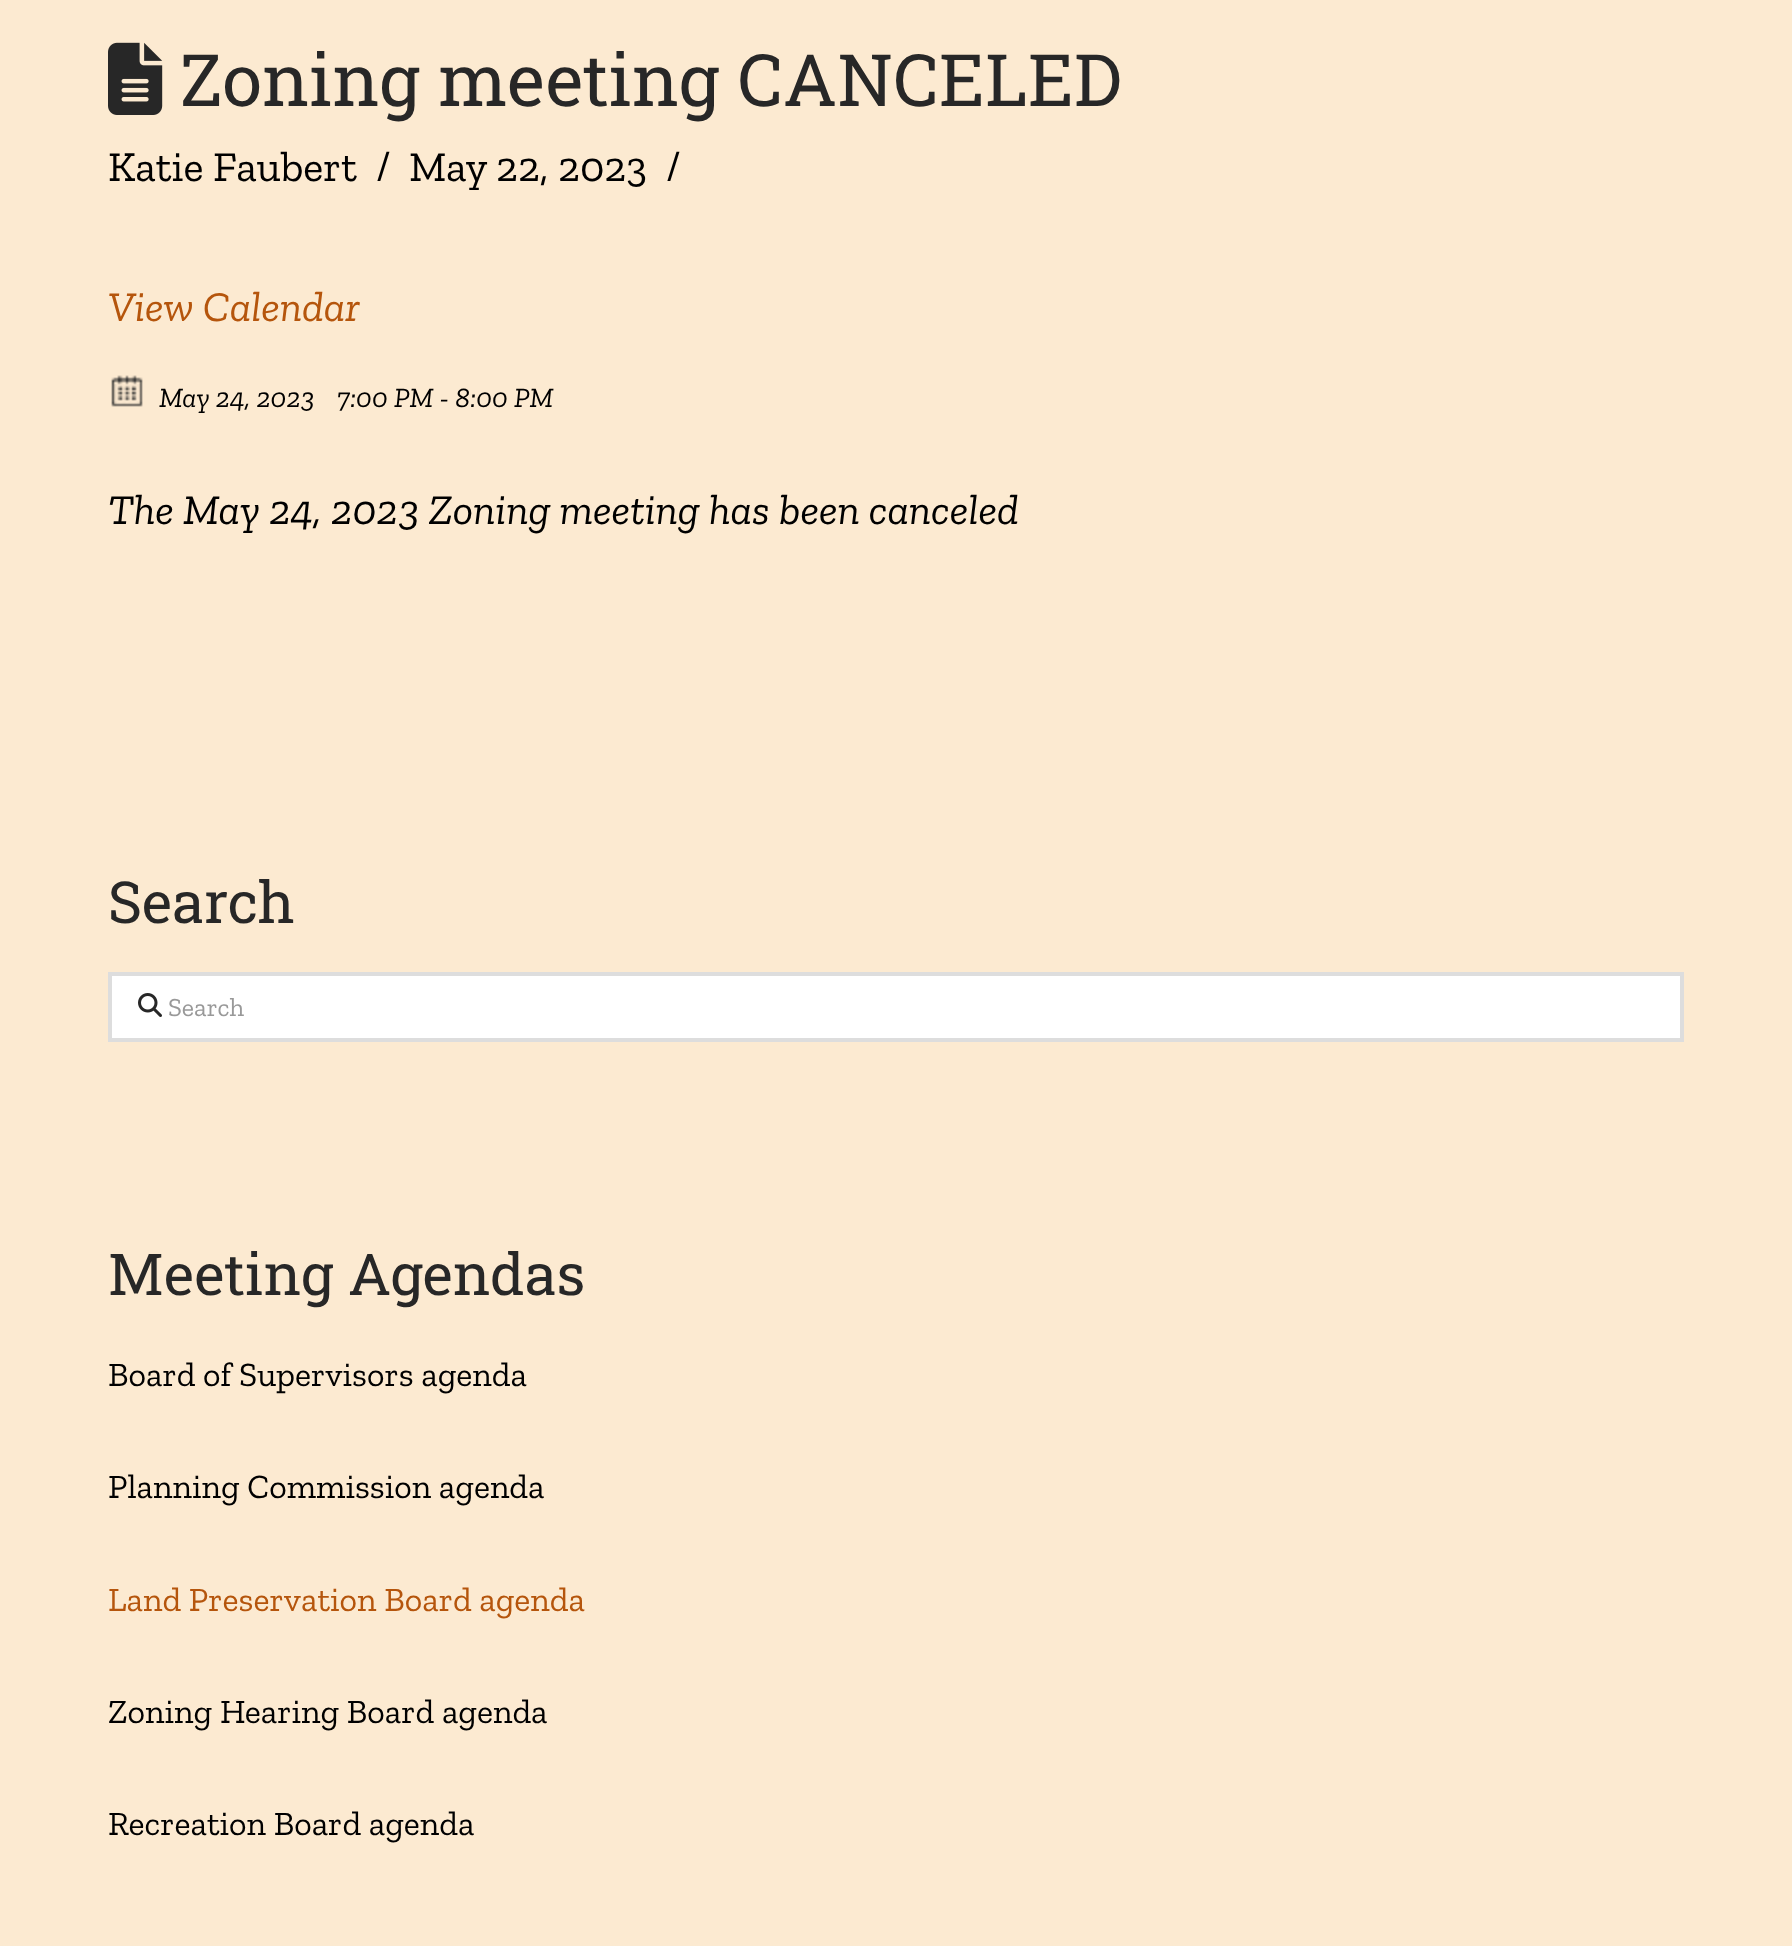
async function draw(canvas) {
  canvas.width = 1792
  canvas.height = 1946
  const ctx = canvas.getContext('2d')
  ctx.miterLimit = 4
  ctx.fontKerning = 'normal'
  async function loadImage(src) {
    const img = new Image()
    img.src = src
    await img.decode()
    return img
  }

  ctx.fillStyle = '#fcead1'
  ctx.fillRect(0, 0, 1792, 1946)
  ctx.drawImage(await loadImage('image0.png'), 108, 42, 55, 73)
  ctx.font = '72.25px Roboto Slab'
  ctx.fillStyle = '#272727'
  ctx.fillText('Zoning meeting CANCELED', 180, 106)
  ctx.font = '42.5px Zilla Slab'
  ctx.fillStyle = '#000'
  ctx.fillText('Katie Faubert', 108, 181)
  ctx.fillText('/', 376, 181)
  ctx.fillText('May 22, 2023', 409, 181)
  ctx.fillText('/', 666, 181)
  ctx.font = 'italic 42.5px Zilla Slab'
  ctx.fillStyle = '#b5550c'
  ctx.fillText('View Calendar', 108, 321)
  ctx.drawImage(await loadImage('image1.png'), 111, 375, 32, 32)
  ctx.font = 'italic 28px Zilla Slab'
  ctx.fillStyle = '#000'
  ctx.fillText('May 24, 2023', 159, 407)
  ctx.fillText('7:00 PM - 8:00 PM', 337, 407)
  ctx.font = 'italic 42.5px Zilla Slab'
  ctx.fillText('The May 24, 2023 Zoning meeting has been canceled', 108, 524)
  ctx.font = '57.75px Roboto Slab'
  ctx.fillStyle = '#272727'
  ctx.fillText('Search', 108, 923)
  ctx.fillStyle = '#fff'
  ctx.beginPath()
  ctx.rect(110, 974, 1572, 66)
  ctx.fill()
  ctx.strokeStyle = '#ddd'
  ctx.lineWidth = 4
  ctx.stroke()
  ctx.drawImage(await loadImage('image2.png'), 138, 993, 24, 24)
  ctx.font = '26px Zilla Slab'
  ctx.fillStyle = '#999'
  ctx.fillText('Search', 168, 1016)
  ctx.font = '57.75px Roboto Slab'
  ctx.fillStyle = '#272727'
  ctx.fillText('Meeting Agendas', 108, 1295)
  ctx.font = '34px Zilla Slab'
  ctx.fillStyle = '#000'
  ctx.fillText('Board of Supervisors agenda', 108, 1386)
  ctx.fillText('Planning Commission agenda', 108, 1498)
  ctx.fillStyle = '#b5550c'
  ctx.fillText('Land Preservation Board agenda', 108, 1611)
  ctx.fillStyle = '#000'
  ctx.fillText('Zoning Hearing Board agenda', 108, 1723)
  ctx.fillText('Recreation Board agenda', 108, 1835)
}

draw(document.querySelector('canvas'))
